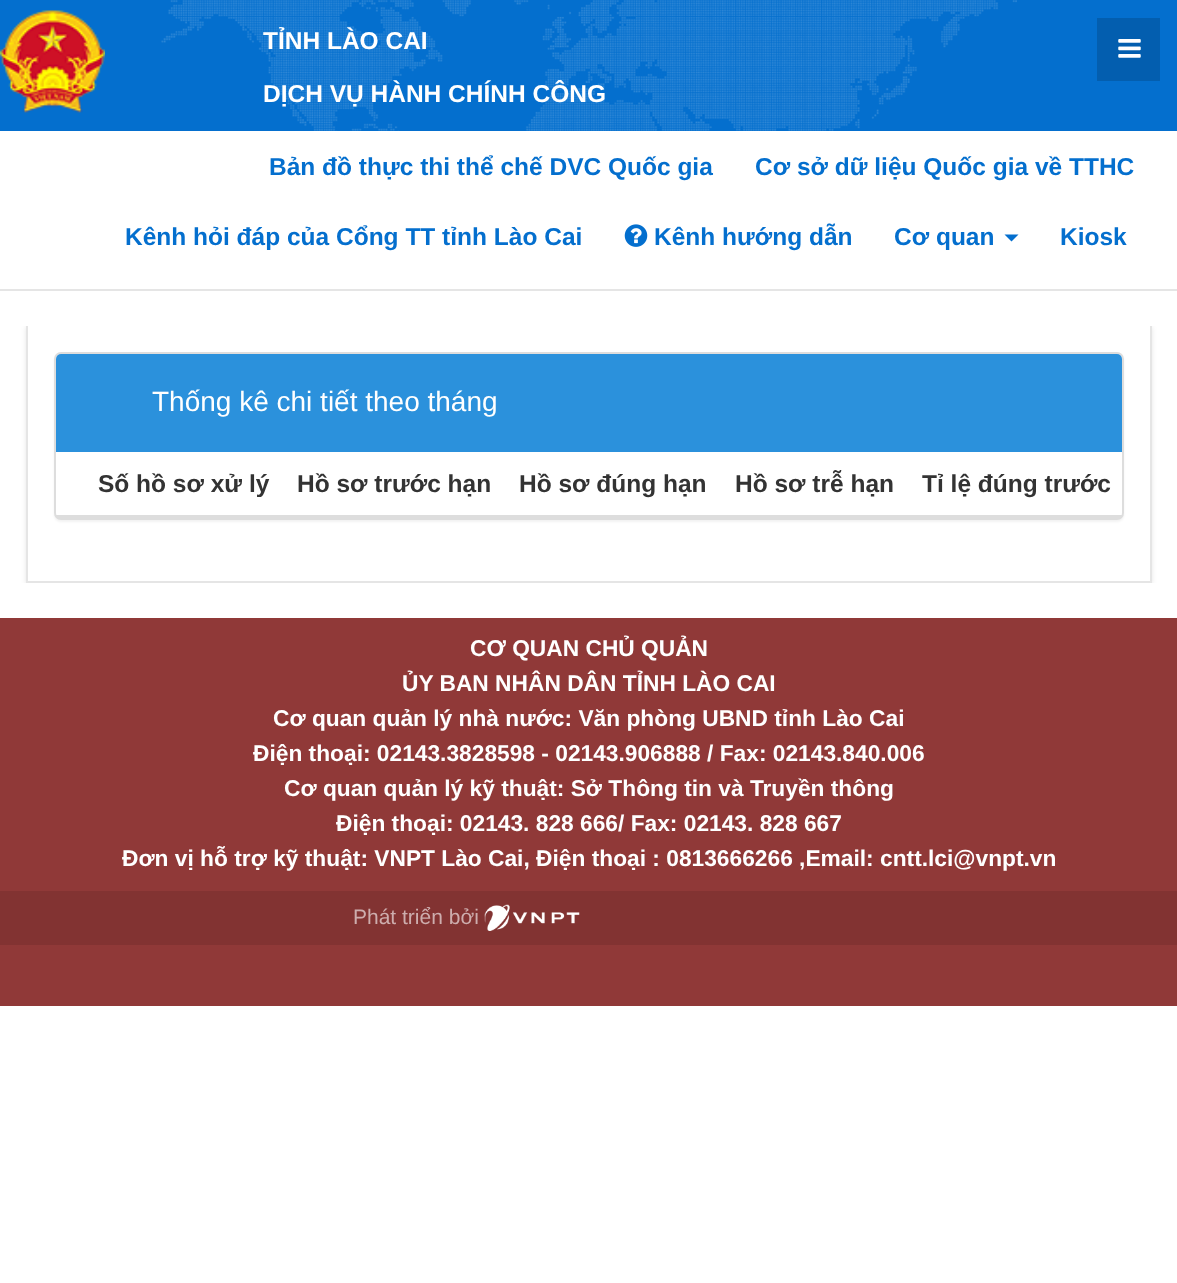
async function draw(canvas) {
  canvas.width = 1177
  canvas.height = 1283
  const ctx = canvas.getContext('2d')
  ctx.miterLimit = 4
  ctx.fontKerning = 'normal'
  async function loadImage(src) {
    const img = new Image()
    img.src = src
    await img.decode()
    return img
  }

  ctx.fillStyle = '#fff'
  ctx.fillRect(0, 0, 1177, 1283)
  ctx.fillStyle = '#046fce'
  ctx.fillRect(0, 0, 1177, 131)
  ctx.drawImage(await loadImage('image0.png'), 161, 0, 856, 131)
  ctx.drawImage(await loadImage('image1.png'), 0, 10, 105, 103)
  ctx.font = 'bold 24.5px Liberation Sans'
  ctx.fillStyle = '#fff'
  ctx.fillText('TỈNH LÀO CAI', 263, 49)
  ctx.fillText('DỊCH VỤ HÀNH CHÍNH CÔNG', 263, 102)
  ctx.fillStyle = '#035eaf'
  ctx.fillRect(1097, 18, 63, 63)
  ctx.drawImage(await loadImage('image2.png'), 1118, 39, 23, 19)
  ctx.fillStyle = '#e5e5e5'
  ctx.fillRect(0, 289, 1177, 2)
  ctx.fillStyle = '#046fce'
  ctx.fillText('Bản đồ thực thi thể chế DVC Quốc gia', 269, 175)
  ctx.fillText('Cơ sở dữ liệu Quốc gia về TTHC', 755, 175)
  ctx.fillText('Kênh hỏi đáp của Cổng TT tỉnh Lào Cai', 125, 245)
  ctx.drawImage(await loadImage('image3.png'), 624, 224, 24, 23)
  ctx.fillText('Kênh hướng dẫn', 654, 245)
  ctx.fillText('Cơ quan', 894, 245)
  ctx.beginPath()
  ctx.moveTo(1004.5, 234.5)
  ctx.lineTo(1018.5, 234.5)
  ctx.lineTo(1011.5, 241.5)
  ctx.closePath()
  ctx.fill()
  ctx.fillText('Kiosk', 1060, 245)
  ctx.save()
  ctx.beginPath()
  ctx.rect(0, 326, 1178, 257)
  ctx.clip()
  ctx.fillStyle = '#0000001a'
  ctx.filter = 'blur(2.5px)'
  ctx.beginPath()
  ctx.rect(26, 327, 1126, 258)
  ctx.fill()
  ctx.filter = 'none'
  ctx.restore()
  ctx.fillStyle = '#fff'
  ctx.fillRect(28, 326, 1122, 255)
  ctx.fillStyle = '#e5e5e5'
  ctx.fillRect(1150, 326, 2, 257)
  ctx.fillRect(26, 581, 1126, 2)
  ctx.fillRect(26, 326, 2, 257)
  ctx.fillStyle = '#0000000d'
  ctx.filter = 'blur(1px)'
  ctx.beginPath()
  ctx.roundRect(54, 354, 1070, 168, 7)
  ctx.fill()
  ctx.filter = 'none'
  ctx.fillStyle = '#fff'
  ctx.beginPath()
  ctx.roundRect(55, 353, 1068, 166, 6)
  ctx.fill()
  ctx.strokeStyle = '#ddd'
  ctx.lineWidth = 2
  ctx.stroke()
  ctx.fillStyle = '#2b91dc'
  ctx.beginPath()
  ctx.roundRect(56, 354, 1066, 98, [5, 5, 0, 0])
  ctx.fill()
  ctx.font = '28px Liberation Sans'
  ctx.fillStyle = '#fff'
  ctx.fillText('Thống kê chi tiết theo tháng', 152, 411)
  ctx.font = 'bold 24.5px Liberation Sans'
  ctx.fillStyle = '#333'
  ctx.fillText('Số hồ sơ xử lý', 98, 492)
  ctx.fillText('Hồ sơ trước hạn', 297, 492)
  ctx.fillText('Hồ sơ đúng hạn', 519, 492)
  ctx.fillText('Hồ sơ trễ hạn', 735, 492)
  ctx.fillStyle = '#ddd'
  ctx.fillRect(56, 515, 1066, 3)
  ctx.fillStyle = '#333'
  ctx.fillText('Tỉ lệ đúng trước', 922, 492)
  ctx.fillStyle = '#903938'
  ctx.fillRect(0, 618, 1177, 388)
  ctx.font = 'bold 22.75px Liberation Sans'
  ctx.fillStyle = '#fff'
  ctx.fillText('CƠ QUAN CHỦ QUẢN', 470, 656)
  ctx.fillText('ỦY BAN NHÂN DÂN TỈNH LÀO CAI', 402, 691)
  ctx.fillText('Cơ quan quản lý nhà nước: Văn phòng UBND tỉnh Lào Cai', 273, 726)
  ctx.fillText('Điện thoại: 02143.3828598 - 02143.906888 / Fax: 02143.840.006', 253, 761)
  ctx.fillText('Cơ quan quản lý kỹ thuật: Sở Thông tin và Truyền thông', 284, 796)
  ctx.fillText('Điện thoại: 02143. 828 666/ Fax: 02143. 828 667', 336, 831)
  ctx.fillText('Đơn vị hỗ trợ kỹ thuật: VNPT Lào Cai, Điện thoại : 0813666266 ,Email: cntt.lci@vnpt.vn', 122, 866)
  ctx.fillStyle = '#823332'
  ctx.fillRect(0, 891, 1177, 54)
  ctx.font = '21px Liberation Sans'
  ctx.fillStyle = '#cdadad'
  ctx.fillText('Phát triển bởi', 353, 924)
  ctx.drawImage(await loadImage('image4.png'), 484, 904, 96, 27)
}

draw(document.querySelector('canvas'))
